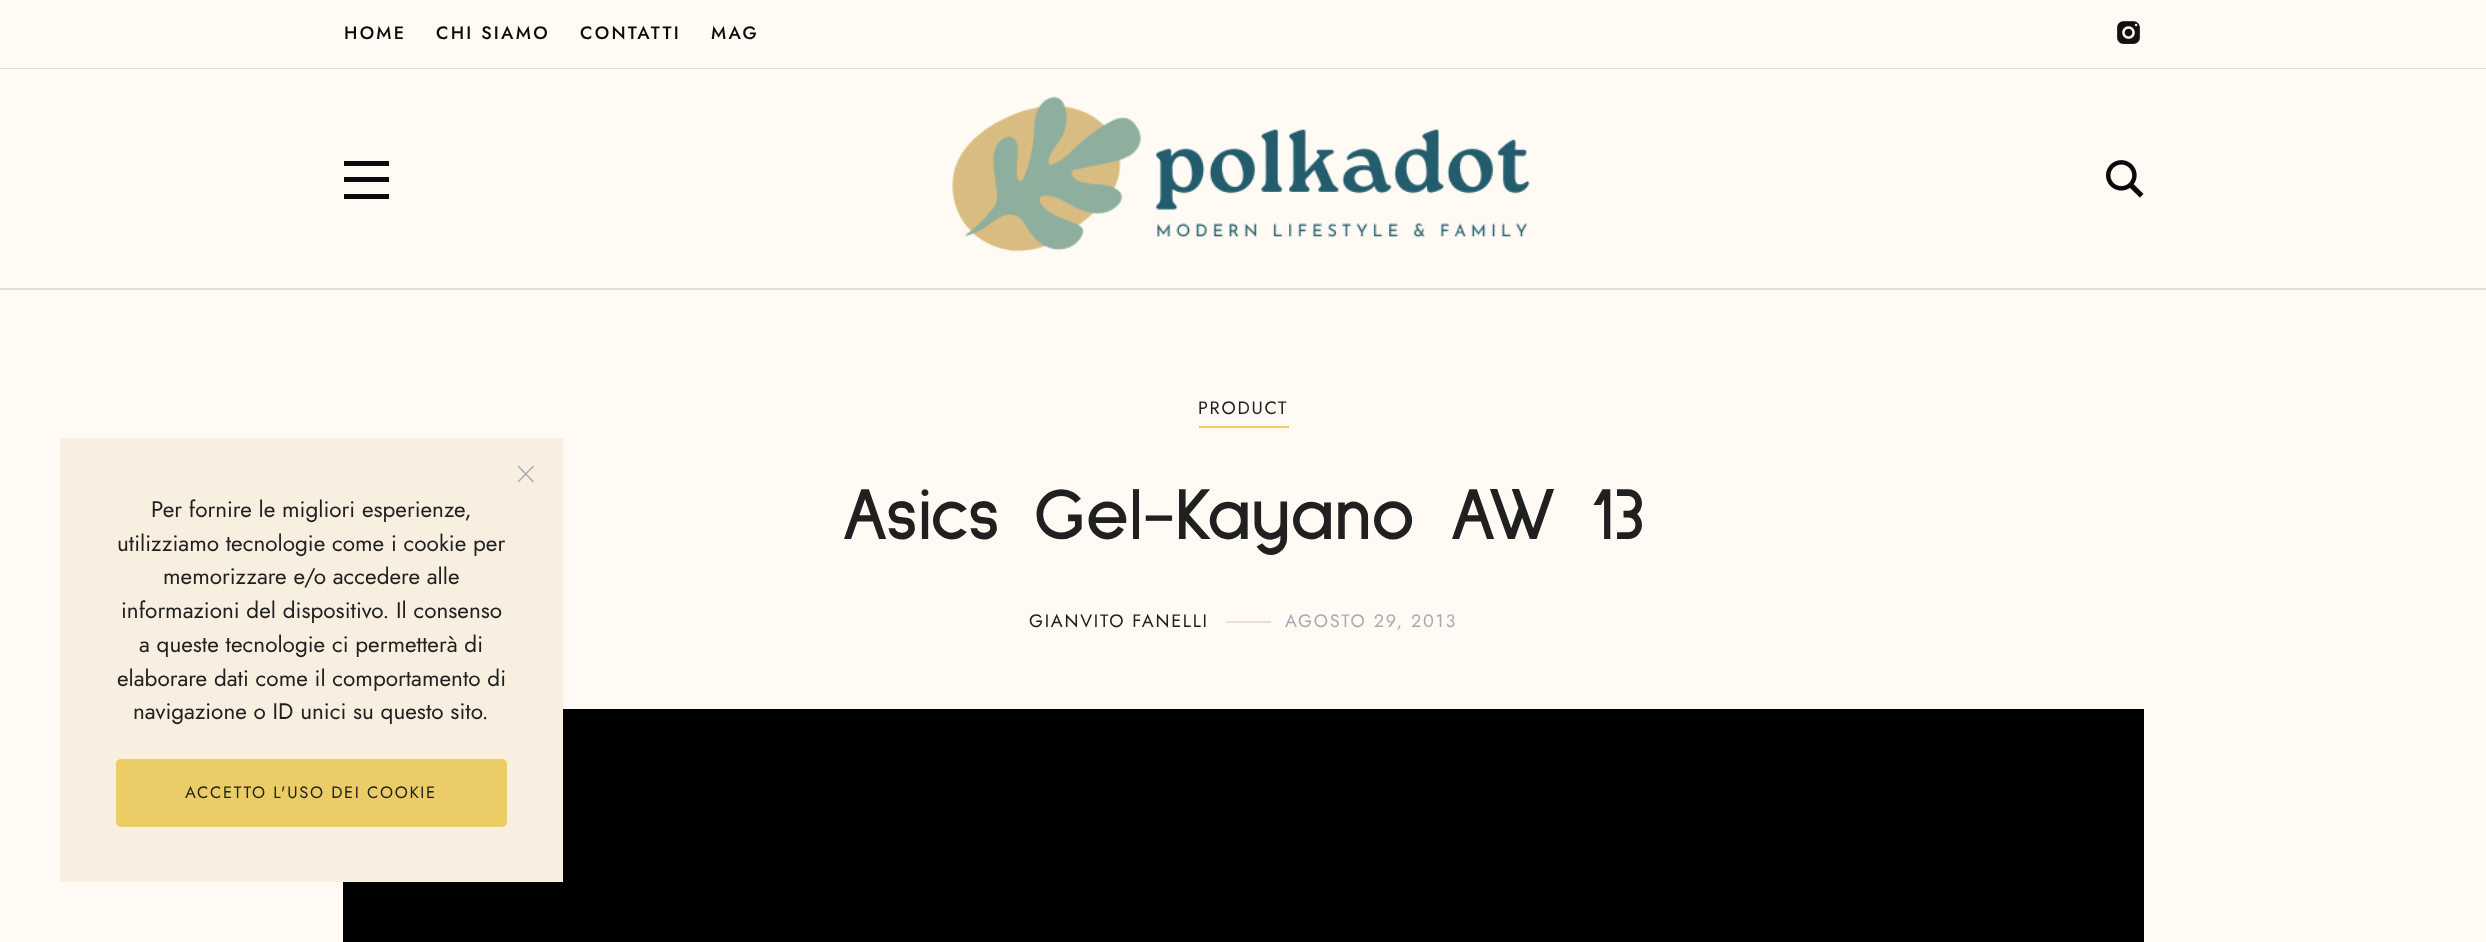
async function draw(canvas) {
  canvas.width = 2486
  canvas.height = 942
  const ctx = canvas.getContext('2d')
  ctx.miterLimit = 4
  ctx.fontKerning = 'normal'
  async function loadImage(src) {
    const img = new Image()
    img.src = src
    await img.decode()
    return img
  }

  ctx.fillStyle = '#fffbf4'
  ctx.fillRect(0, 0, 2486, 942)
  ctx.fillStyle = '#000'
  ctx.fillRect(343, 709, 1801, 233)
  ctx.fillStyle = '#f9efe0'
  ctx.fillRect(60, 438, 503, 444)
  ctx.fillStyle = '#a8aab2'
  ctx.beginPath()
  ctx.moveTo(518.5, 465.5)
  ctx.lineTo(534, 481.5)
  ctx.lineTo(533, 482.5)
  ctx.lineTo(517.5, 466.5)
  ctx.closePath()
  ctx.fill()
  ctx.beginPath()
  ctx.moveTo(517.5, 481.5)
  ctx.lineTo(533, 465.5)
  ctx.lineTo(534, 466.5)
  ctx.lineTo(518.5, 482.5)
  ctx.closePath()
  ctx.fill()
  ctx.font = '22.5px Jost'
  ctx.fillStyle = '#202020'
  ctx.fillText('Per fornire le migliori esperienze,', 151, 517)
  ctx.fillText('utilizziamo tecnologie come i cookie per', 117, 551)
  ctx.fillText('memorizzare e/o accedere alle', 163, 584)
  ctx.fillText('informazioni del dispositivo. Il consenso', 121, 618)
  ctx.fillText('a queste tecnologie ci permetterà di', 139, 652)
  ctx.fillText('elaborare dati come il comportamento di', 117, 686)
  ctx.fillText('navigazione o ID unici su questo sito.', 133, 719)
  ctx.fillStyle = '#ebcc67'
  ctx.beginPath()
  ctx.roundRect(116, 759, 391, 68, 5)
  ctx.fill()
  ctx.letterSpacing = '1.65px'
  ctx.font = '16.5px Jost'
  ctx.fillStyle = '#202020'
  ctx.fillText('ACCETTO L\'USO DEI COOKIE', 185, 798)
  ctx.fillStyle = '#e8dcdc'
  ctx.fillRect(0, 68, 2486, 1)
  ctx.letterSpacing = '2.25px'
  ctx.font = '500 18px Jost'
  ctx.fillStyle = '#0a0a0a'
  ctx.fillText('HOME', 344, 39)
  ctx.fillText('CHI SIAMO', 436, 39)
  ctx.fillText('CONTATTI', 580, 39)
  ctx.fillText('MAG', 711, 39)
  ctx.drawImage(await loadImage('image0.png'), 2117, 21, 23, 23)
  ctx.fillStyle = '#e8dcdc'
  ctx.fillRect(0, 288, 2486, 2)
  ctx.fillStyle = '#0a0a0a'
  ctx.fillRect(344, 161, 45, 5)
  ctx.fillRect(344, 194, 45, 5)
  ctx.fillRect(344, 177, 45, 5)
  ctx.drawImage(await loadImage('image1.png'), 952, 96, 578, 156)
  ctx.drawImage(await loadImage('image2.png'), 2106, 160, 38, 38)
  ctx.fillStyle = '#ebcc67'
  ctx.fillRect(1199, 426, 90, 2)
  ctx.letterSpacing = '1.75px'
  ctx.font = '18px Jost'
  ctx.fillStyle = '#202020'
  ctx.fillText('PRODUCT', 1198, 414)
  ctx.letterSpacing = '0px'
  ctx.font = 'bold 75px Sulphur Point'
  ctx.fillText('Asics Gel-Kayano AW 13', 841, 539)
  ctx.letterSpacing = '1.75px'
  ctx.font = '18px Jost'
  ctx.fillText('GIANVITO FANELLI', 1029, 627)
  ctx.fillStyle = '#e8dcdc'
  ctx.fillRect(1226, 621, 45, 2)
  ctx.fillStyle = '#a8aab2'
  ctx.fillText('AGOSTO 29, 2013', 1285, 627)
}

draw(document.querySelector('canvas'))
